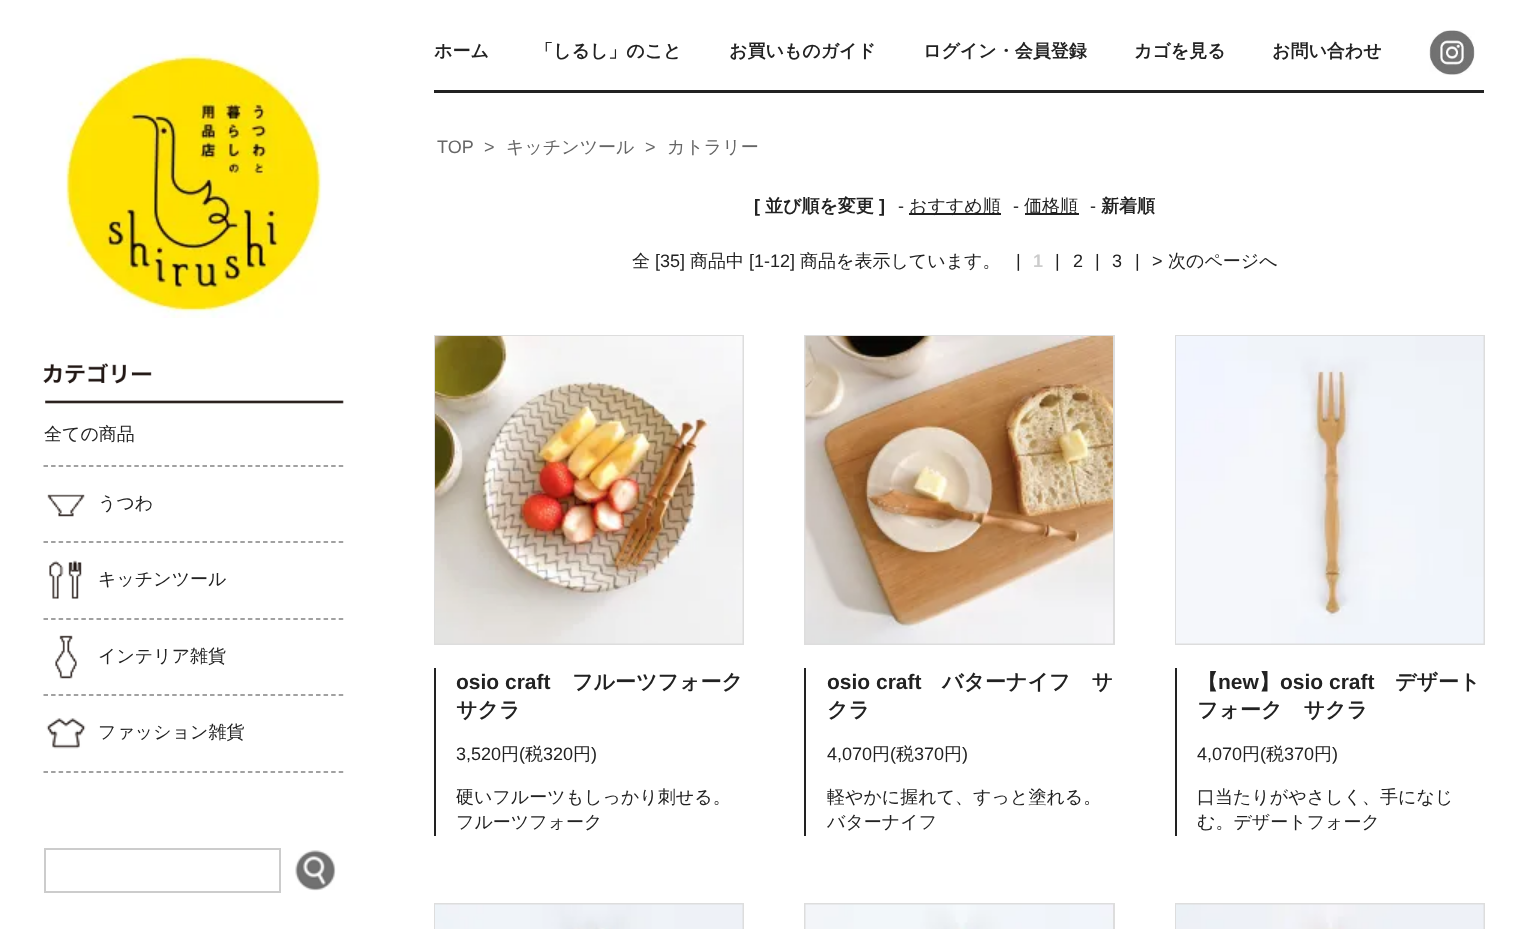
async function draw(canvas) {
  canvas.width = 1527
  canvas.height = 929
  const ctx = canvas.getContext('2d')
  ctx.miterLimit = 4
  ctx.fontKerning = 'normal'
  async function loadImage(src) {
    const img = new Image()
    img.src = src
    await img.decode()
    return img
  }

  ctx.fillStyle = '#fff'
  ctx.fillRect(0, 0, 1527, 929)
  ctx.fillStyle = '#222'
  ctx.fillRect(434, 90, 1050, 3)
  ctx.font = 'bold 18px WenQuanYi Zen Hei'
  ctx.fillText('ホーム', 434, 57)
  ctx.fillText('「しるし」のこと', 535, 57)
  ctx.fillText('お買いものガイド', 729, 57)
  ctx.fillText('ログイン・会員登録', 923, 57)
  ctx.fillText('カゴを見る', 1134, 57)
  ctx.fillText('お問い合わせ', 1272, 57)
  ctx.drawImage(await loadImage('image0.png'), 1429, 30, 46, 45)
  ctx.drawImage(await loadImage('image1.png'), 65, 54, 257, 264)
  ctx.drawImage(await loadImage('image2.png'), 43, 363, 301, 41)
  ctx.beginPath()
  ctx.moveTo(43.5, 466)
  ctx.lineTo(343.5, 466)
  ctx.strokeStyle = '#838383'
  ctx.lineWidth = 1.5
  ctx.setLineDash([4.5, 3.07])
  ctx.stroke()
  ctx.font = '500 18px WenQuanYi Zen Hei'
  ctx.fillText('全ての商品', 44, 440)
  ctx.beginPath()
  ctx.moveTo(43.5, 542)
  ctx.lineTo(343.5, 542)
  ctx.stroke()
  ctx.drawImage(await loadImage('image3.png'), 47, 494, 38, 23)
  ctx.fillText('うつわ', 98, 509)
  ctx.beginPath()
  ctx.moveTo(43.5, 619)
  ctx.lineTo(343.5, 619)
  ctx.stroke()
  ctx.drawImage(await loadImage('image4.png'), 49, 560, 33, 39)
  ctx.fillText('キッチンツール', 98, 585)
  ctx.beginPath()
  ctx.moveTo(43.5, 695)
  ctx.lineTo(343.5, 695)
  ctx.stroke()
  ctx.drawImage(await loadImage('image5.png'), 55, 635, 22, 44)
  ctx.fillText('インテリア雑貨', 98, 662)
  ctx.beginPath()
  ctx.moveTo(43.5, 772)
  ctx.lineTo(343.5, 772)
  ctx.stroke()
  ctx.drawImage(await loadImage('image6.png'), 46, 718, 40, 31)
  ctx.fillText('ファッション雑貨', 98, 738)
  ctx.strokeStyle = '#ccc'
  ctx.lineWidth = 2
  ctx.setLineDash([])
  ctx.strokeRect(45, 849, 235, 43)
  ctx.drawImage(await loadImage('image7.png'), 295, 850, 41, 41)
  ctx.font = '18px Liberation Sans'
  ctx.fillStyle = '#666'
  ctx.fillText('TOP', 437, 153)
  ctx.fillText('>', 484, 153)
  ctx.font = '500 18px WenQuanYi Zen Hei'
  ctx.fillText('キッチンツール', 506, 153)
  ctx.font = '18px Liberation Sans'
  ctx.fillText('>', 645, 153)
  ctx.font = '500 18px WenQuanYi Zen Hei'
  ctx.fillText('カトラリー', 667, 153)
  ctx.font = 'bold 18px Liberation Sans'
  ctx.fillStyle = '#222'
  ctx.fillText('[', 754, 212)
  ctx.font = 'bold 18px WenQuanYi Zen Hei'
  ctx.fillText('並び順を変更', 765, 212)
  ctx.font = 'bold 18px Liberation Sans'
  ctx.fillText(']', 879, 212)
  ctx.font = '18px Liberation Sans'
  ctx.fillText('-', 898, 212)
  ctx.fillRect(909, 213, 92, 2)
  ctx.font = '500 18px WenQuanYi Zen Hei'
  ctx.fillText('おすすめ順', 909, 212)
  ctx.font = '18px Liberation Sans'
  ctx.fillText('-', 1013, 212)
  ctx.fillRect(1025, 213, 54, 2)
  ctx.font = '500 18px WenQuanYi Zen Hei'
  ctx.fillText('価格順', 1024, 212)
  ctx.font = '18px Liberation Sans'
  ctx.fillText('-', 1090, 212)
  ctx.font = 'bold 18px WenQuanYi Zen Hei'
  ctx.fillText('新着順', 1101, 212)
  ctx.font = '500 18px WenQuanYi Zen Hei'
  ctx.fillText('全', 632, 267)
  ctx.font = '18px Liberation Sans'
  ctx.fillText('[35]', 655, 267)
  ctx.font = '500 18px WenQuanYi Zen Hei'
  ctx.fillText('商品中', 690, 267)
  ctx.font = '18px Liberation Sans'
  ctx.fillText('[1-12]', 749, 267)
  ctx.font = '500 18px WenQuanYi Zen Hei'
  ctx.fillText('商品を表示しています。', 800, 267)
  ctx.font = '18px Liberation Sans'
  ctx.fillText('|', 1016, 267)
  ctx.font = 'bold 18px Liberation Sans'
  ctx.fillStyle = '#ccc'
  ctx.fillText('1', 1033, 267)
  ctx.font = '18px Liberation Sans'
  ctx.fillStyle = '#222'
  ctx.fillText('|', 1055, 267)
  ctx.fillText('2', 1073, 267)
  ctx.fillText('|', 1095, 267)
  ctx.fillText('3', 1112, 267)
  ctx.fillText('|', 1135, 267)
  ctx.fillText('>', 1152, 267)
  ctx.font = '500 18px WenQuanYi Zen Hei'
  ctx.fillText('次のページへ', 1168, 267)
  ctx.strokeStyle = '#ddd'
  ctx.strokeRect(435, 336, 308, 308)
  ctx.drawImage(await loadImage('image8.png'), 435, 336, 308, 308)
  ctx.fillRect(434, 668, 2, 168)
  ctx.font = 'bold 21px Liberation Sans'
  ctx.fillText('osio craft', 456, 689)
  ctx.font = 'bold 21px WenQuanYi Zen Hei'
  ctx.fillText('フルーツフォーク', 572, 689)
  ctx.fillText('サクラ', 456, 717)
  ctx.font = '18px Liberation Sans'
  ctx.fillText('3,520', 456, 760)
  ctx.font = '500 18px WenQuanYi Zen Hei'
  ctx.fillText('円', 501, 760)
  ctx.font = '18px Liberation Sans'
  ctx.fillText('(', 519, 760)
  ctx.font = '500 18px WenQuanYi Zen Hei'
  ctx.fillText('税', 525, 760)
  ctx.font = '18px Liberation Sans'
  ctx.fillText('320', 543, 760)
  ctx.font = '500 18px WenQuanYi Zen Hei'
  ctx.fillText('円', 573, 760)
  ctx.font = '18px Liberation Sans'
  ctx.fillText(')', 591, 760)
  ctx.font = '500 18px WenQuanYi Zen Hei'
  ctx.fillText('硬いフルーツもしっかり刺せる。', 456, 803)
  ctx.fillText('フルーツフォーク', 456, 828)
  ctx.strokeRect(805, 336, 309, 308)
  ctx.drawImage(await loadImage('image9.png'), 805, 336, 308, 308)
  ctx.fillRect(804, 668, 2, 168)
  ctx.font = 'bold 21px Liberation Sans'
  ctx.fillText('osio craft', 827, 689)
  ctx.font = 'bold 21px WenQuanYi Zen Hei'
  ctx.fillText('バターナイフ　サ', 942, 689)
  ctx.fillText('クラ', 827, 717)
  ctx.font = '18px Liberation Sans'
  ctx.fillText('4,070', 827, 760)
  ctx.font = '500 18px WenQuanYi Zen Hei'
  ctx.fillText('円', 872, 760)
  ctx.font = '18px Liberation Sans'
  ctx.fillText('(', 890, 760)
  ctx.font = '500 18px WenQuanYi Zen Hei'
  ctx.fillText('税', 896, 760)
  ctx.font = '18px Liberation Sans'
  ctx.fillText('370', 914, 760)
  ctx.font = '500 18px WenQuanYi Zen Hei'
  ctx.fillText('円', 944, 760)
  ctx.font = '18px Liberation Sans'
  ctx.fillText(')', 962, 760)
  ctx.font = '500 18px WenQuanYi Zen Hei'
  ctx.fillText('軽やかに握れて、すっと塗れる。', 827, 803)
  ctx.fillText('バターナイフ', 827, 828)
  ctx.strokeRect(1176, 336, 308, 308)
  ctx.drawImage(await loadImage('image10.png'), 1176, 336, 308, 308)
  ctx.fillRect(1175, 668, 2, 168)
  ctx.font = 'bold 21px WenQuanYi Zen Hei'
  ctx.fillText('【', 1197, 689)
  ctx.font = 'bold 21px Liberation Sans'
  ctx.fillText('new', 1218, 689)
  ctx.font = 'bold 21px WenQuanYi Zen Hei'
  ctx.fillText('】', 1259, 689)
  ctx.font = 'bold 21px Liberation Sans'
  ctx.fillText('osio craft', 1280, 689)
  ctx.font = 'bold 21px WenQuanYi Zen Hei'
  ctx.fillText('デザート', 1395, 689)
  ctx.fillText('フォーク　サクラ', 1197, 717)
  ctx.font = '18px Liberation Sans'
  ctx.fillText('4,070', 1197, 760)
  ctx.font = '500 18px WenQuanYi Zen Hei'
  ctx.fillText('円', 1242, 760)
  ctx.font = '18px Liberation Sans'
  ctx.fillText('(', 1260, 760)
  ctx.font = '500 18px WenQuanYi Zen Hei'
  ctx.fillText('税', 1266, 760)
  ctx.font = '18px Liberation Sans'
  ctx.fillText('370', 1284, 760)
  ctx.font = '500 18px WenQuanYi Zen Hei'
  ctx.fillText('円', 1314, 760)
  ctx.font = '18px Liberation Sans'
  ctx.fillText(')', 1332, 760)
  ctx.font = '500 18px WenQuanYi Zen Hei'
  ctx.fillText('口当たりがやさしく、手になじ', 1197, 803)
  ctx.fillText('む。デザートフォーク', 1197, 828)
  ctx.strokeRect(435, 904, 308, 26)
  ctx.drawImage(await loadImage('image11.png'), 435, 904, 308, 25)
  ctx.strokeRect(805, 904, 309, 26)
  ctx.drawImage(await loadImage('image12.png'), 805, 904, 308, 25)
  ctx.strokeRect(1176, 904, 308, 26)
  ctx.drawImage(await loadImage('image13.png'), 1176, 904, 308, 25)
}

draw(document.querySelector('canvas'))
